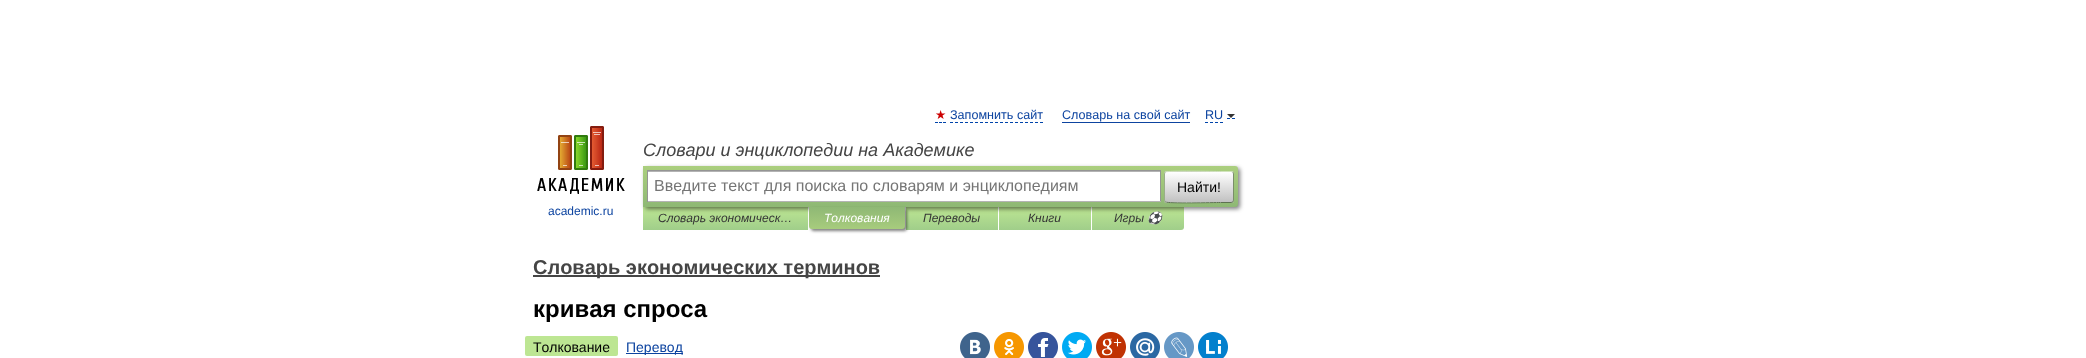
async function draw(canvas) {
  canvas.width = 2086
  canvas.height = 358
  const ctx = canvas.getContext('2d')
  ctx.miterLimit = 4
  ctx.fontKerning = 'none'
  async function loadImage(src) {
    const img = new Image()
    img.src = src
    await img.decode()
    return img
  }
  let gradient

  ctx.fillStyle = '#fff'
  ctx.fillRect(0, 0, 2086, 358)
  ctx.font = '12.6px DejaVu Sans'
  ctx.fillStyle = '#c00'
  ctx.fillText('★', 935, 119)
  ctx.beginPath()
  ctx.moveTo(935, 122.5)
  ctx.lineTo(938, 122.5)
  ctx.moveTo(939, 122.5)
  ctx.lineTo(942, 122.5)
  ctx.moveTo(943, 122.5)
  ctx.lineTo(946, 122.5)
  ctx.strokeStyle = '#04a'
  ctx.stroke()
  ctx.font = '12.6px Liberation Sans'
  ctx.fillStyle = '#0d44a0'
  ctx.fillText('Запомнить сайт', 950, 119)
  ctx.beginPath()
  ctx.moveTo(950, 122.5)
  ctx.lineTo(1043, 122.5)
  ctx.setLineDash([3, 2])
  ctx.stroke()
  ctx.fillText('Словарь на свой сайт', 1062, 119)
  ctx.fillRect(1062, 122, 128, 1)
  ctx.beginPath()
  ctx.moveTo(1205, 122.5)
  ctx.lineTo(1223, 122.5)
  ctx.stroke()
  ctx.beginPath()
  ctx.moveTo(1227, 118.5)
  ctx.lineTo(1230, 118.5)
  ctx.moveTo(1232, 118.5)
  ctx.lineTo(1235, 118.5)
  ctx.setLineDash([])
  ctx.stroke()
  ctx.fillText('RU', 1205, 119)
  ctx.fillStyle = '#333'
  ctx.beginPath()
  ctx.moveTo(1227, 114)
  ctx.lineTo(1235, 114)
  ctx.lineTo(1231, 118)
  ctx.closePath()
  ctx.fill()
  ctx.font = 'italic 18px Liberation Sans'
  ctx.fillStyle = '#454545'
  ctx.fillText('Словари и энциклопедии на Академике', 643, 156)
  gradient = ctx.createLinearGradient(726, 207, 726, 230)
  gradient.addColorStop(0, '#bde693')
  gradient.addColorStop(1, '#a0ce8a')
  ctx.fillStyle = gradient
  ctx.fillRect(643, 207, 165, 23)
  gradient = ctx.createLinearGradient(952, 207, 952, 230)
  gradient.addColorStop(0, '#bde693')
  gradient.addColorStop(1, '#a0ce8a')
  ctx.fillStyle = gradient
  ctx.fillRect(906, 207, 92, 23)
  gradient = ctx.createLinearGradient(1045, 207, 1045, 230)
  gradient.addColorStop(0, '#bde693')
  gradient.addColorStop(1, '#a0ce8a')
  ctx.fillStyle = gradient
  ctx.fillRect(999, 207, 92, 23)
  gradient = ctx.createLinearGradient(1138, 207, 1138, 230)
  gradient.addColorStop(0, '#bde693')
  gradient.addColorStop(1, '#a0ce8a')
  ctx.fillStyle = gradient
  ctx.beginPath()
  ctx.roundRect(1092, 207, 92, 23, [0, 0, 3, 0])
  ctx.fill()
  ctx.fillStyle = '#00000080'
  ctx.filter = 'blur(2px)'
  ctx.beginPath()
  ctx.roundRect(645, 168, 595, 41, 3)
  ctx.fill()
  ctx.filter = 'none'
  gradient = ctx.createLinearGradient(941, 166, 941, 207)
  gradient.addColorStop(0, '#abcf7e')
  gradient.addColorStop(1, '#8eb874')
  ctx.fillStyle = gradient
  ctx.beginPath()
  ctx.roundRect(643, 166, 595, 41, [0, 3, 3, 0])
  ctx.fill()
  ctx.fillStyle = '#fff'
  ctx.fillRect(648, 172, 512, 29)
  ctx.fillStyle = '#b3b3b3'
  ctx.fillRect(648, 171, 512, 1)
  ctx.fillStyle = '#949494'
  ctx.fillRect(647, 170, 514, 1)
  ctx.fillRect(1160, 170, 1, 32)
  ctx.fillStyle = '#b4b4b4'
  ctx.fillRect(647, 201, 514, 1)
  ctx.fillStyle = '#949494'
  ctx.fillRect(647, 170, 1, 32)
  ctx.font = '16px Liberation Sans'
  ctx.fillStyle = '#757575'
  ctx.fillText('Введите текст для поиска по словарям и энциклопедиям', 654, 191)
  ctx.save()
  ctx.beginPath()
  ctx.roundRect(1164, 171, 70, 32, 3)
  ctx.clip()
  gradient = ctx.createLinearGradient(1199, 142, 1199, 172)
  gradient.addColorStop(0, '#fff')
  gradient.addColorStop(1, '#c1c1c1')
  ctx.fillStyle = gradient
  ctx.fillRect(1164, 171, 70, 1)
  gradient = ctx.createLinearGradient(1199, 172, 1199, 202)
  gradient.addColorStop(0, '#fff')
  gradient.addColorStop(1, '#c1c1c1')
  ctx.fillStyle = gradient
  ctx.fillRect(1164, 172, 70, 30)
  gradient = ctx.createLinearGradient(1199, 202, 1199, 232)
  gradient.addColorStop(0, '#fff')
  gradient.addColorStop(1, '#c1c1c1')
  ctx.fillStyle = gradient
  ctx.fillRect(1164, 202, 70, 1)
  ctx.restore()
  ctx.beginPath()
  ctx.moveTo(1165, 172)
  ctx.lineTo(1165.5, 172)
  ctx.bezierCurveTo(1167.5, 170.5, 1214, 171.5, 1220.5, 171.5)
  ctx.lineTo(1231, 171.5)
  ctx.lineTo(1233, 172)
  ctx.strokeStyle = '#d1e4bc'
  ctx.stroke()
  ctx.beginPath()
  ctx.moveTo(1233, 172)
  ctx.bezierCurveTo(1233, 172.5, 1233.5, 173.5, 1233.5, 174)
  ctx.lineTo(1233.5, 200)
  ctx.bezierCurveTo(1233.5, 200.5, 1233, 201.5, 1233, 202)
  ctx.strokeStyle = '#7a8e69'
  ctx.stroke()
  ctx.beginPath()
  ctx.moveTo(1233, 202)
  ctx.lineTo(1231, 202.5)
  ctx.lineTo(1220.5, 202.5)
  ctx.bezierCurveTo(1214, 202.5, 1167.5, 203.5, 1165.5, 202)
  ctx.lineTo(1165, 202)
  ctx.strokeStyle = '#5d7250'
  ctx.stroke()
  ctx.beginPath()
  ctx.moveTo(1165, 202)
  ctx.bezierCurveTo(1165, 201.5, 1164.5, 200.5, 1164.5, 200)
  ctx.lineTo(1164.5, 174)
  ctx.bezierCurveTo(1164.5, 173.5, 1165, 172.5, 1165, 172)
  ctx.strokeStyle = '#9aae89'
  ctx.stroke()
  ctx.font = '14px Liberation Sans'
  ctx.fillStyle = '#000'
  ctx.fillText('Найти!', 1177, 192)
  ctx.drawImage(await loadImage('image0.png'), 537, 126, 88, 68)
  ctx.font = '12px Liberation Sans'
  ctx.fillStyle = '#0d44a0'
  ctx.fillText('academic.ru', 548, 215)
  ctx.font = 'italic 12px Liberation Sans'
  ctx.fillStyle = '#353535'
  ctx.fillText('Словарь экономическ…', 658, 222)
  ctx.fillStyle = '#00000080'
  ctx.filter = 'blur(1.5px)'
  ctx.beginPath()
  ctx.roundRect(811, 209, 96, 22, 3)
  ctx.fill()
  ctx.filter = 'none'
  gradient = ctx.createLinearGradient(857, 207, 857, 229)
  gradient.addColorStop(0, '#8fb875')
  gradient.addColorStop(1, '#a7cc7d')
  ctx.fillStyle = gradient
  ctx.beginPath()
  ctx.roundRect(809, 207, 96, 22, [0, 0, 3, 3])
  ctx.fill()
  ctx.fillStyle = '#fff'
  ctx.fillText('Толкования', 824, 222)
  ctx.fillStyle = '#353535'
  ctx.fillText('Переводы', 923, 222)
  ctx.fillText('Книги', 1028, 222)
  ctx.fillText('Игры', 1114, 222)
  ctx.font = 'italic 12px Noto Color Emoji'
  ctx.fillText('⚽', 1147, 222)
  ctx.fillStyle = '#454545'
  ctx.fillRect(533, 275, 347, 2)
  ctx.font = 'bold 20px Liberation Sans'
  ctx.fillText('Словарь экономических терминов', 533, 274)
  ctx.font = 'bold 24px Liberation Sans'
  ctx.fillStyle = '#000'
  ctx.fillText('кривая спроса', 533, 317)
  ctx.fillStyle = '#bde693'
  ctx.beginPath()
  ctx.roundRect(525, 336, 93, 20, 2)
  ctx.fill()
  ctx.font = '14px Liberation Sans'
  ctx.fillStyle = '#000'
  ctx.fillText('Толкование', 533, 352)
  ctx.fillStyle = '#0d44a0'
  ctx.fillRect(626, 353, 57, 1)
  ctx.fillText('Перевод', 626, 352)
  ctx.drawImage(await loadImage('image1.png'), 960, 332, 30, 26)
  ctx.drawImage(await loadImage('image2.png'), 994, 332, 30, 26)
  ctx.drawImage(await loadImage('image3.png'), 1028, 332, 30, 26)
  ctx.drawImage(await loadImage('image4.png'), 1062, 332, 30, 26)
  ctx.drawImage(await loadImage('image5.png'), 1096, 332, 30, 26)
  ctx.drawImage(await loadImage('image6.png'), 1130, 332, 30, 26)
  ctx.drawImage(await loadImage('image7.png'), 1164, 332, 30, 26)
  ctx.drawImage(await loadImage('image8.png'), 1198, 332, 30, 26)
}

draw(document.querySelector('canvas'))
